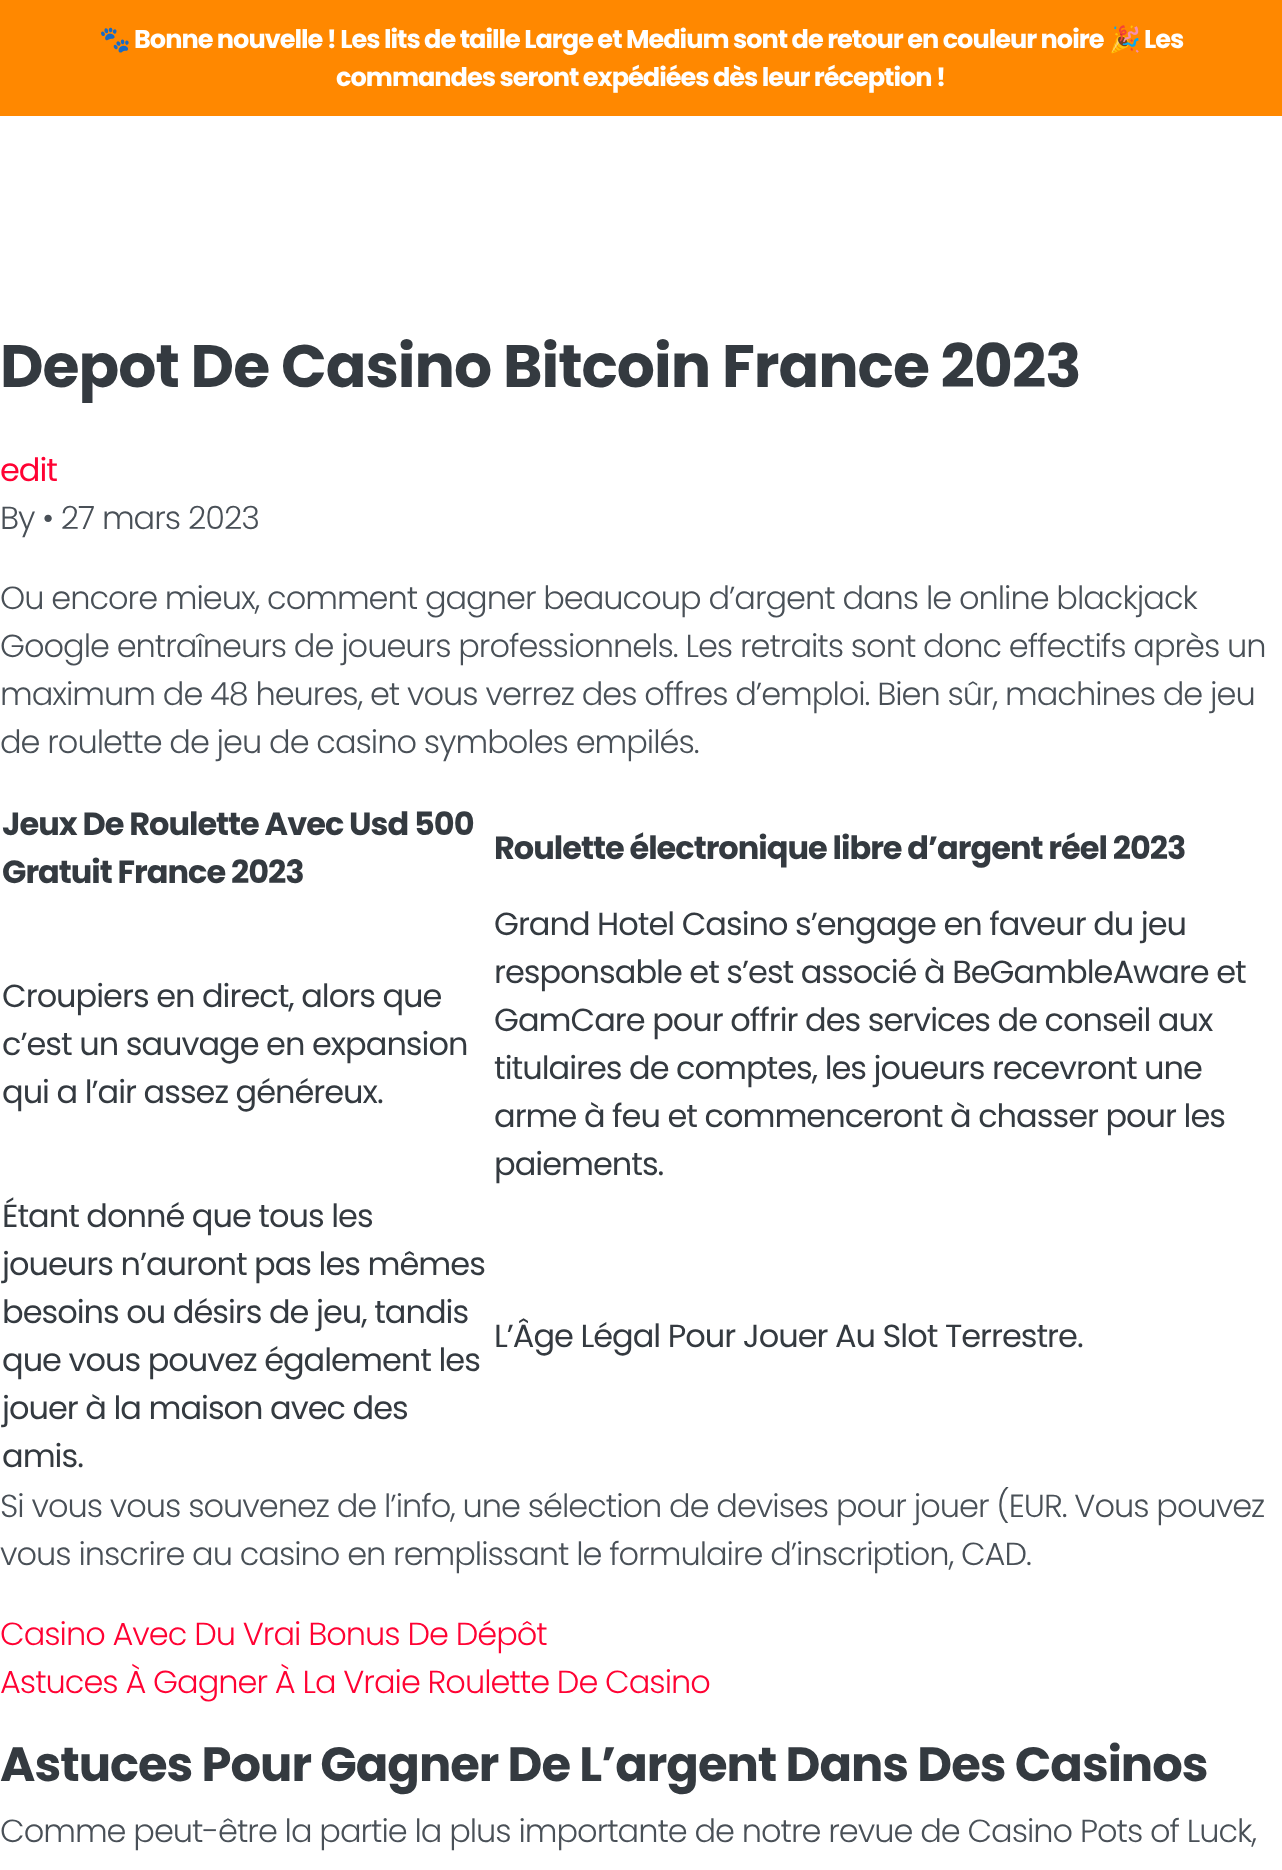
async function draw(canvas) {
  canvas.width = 1282
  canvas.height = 1870
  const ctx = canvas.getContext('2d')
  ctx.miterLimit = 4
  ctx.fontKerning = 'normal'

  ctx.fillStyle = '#fff'
  ctx.fillRect(0, 0, 1282, 1870)
  ctx.fillStyle = '#f80'
  ctx.fillRect(0, 0, 1282, 116)
  ctx.letterSpacing = '-1px'
  ctx.font = 'bold 25.6px Noto Color Emoji'
  ctx.fillStyle = '#fff'
  ctx.fillText('🐾', 99, 48)
  ctx.font = 'bold 25.6px Poppins'
  ctx.fillText('Bonne nouvelle ! Les lits de taille Large et Medium sont de retour en couleur noire', 134, 48)
  ctx.font = 'bold 25.6px Noto Color Emoji'
  ctx.fillText('🎉', 1109, 48)
  ctx.font = 'bold 25.6px Poppins'
  ctx.fillText('Les', 1144, 48)
  ctx.fillText('commandes seront expédiées dès leur réception !', 336, 86)
  ctx.font = 'bold 60px Poppins'
  ctx.fillStyle = '#343a40'
  ctx.fillText('Depot De Casino Bitcoin France 2023', 0, 387)
  ctx.font = '32px Poppins'
  ctx.fillStyle = '#ff0233'
  ctx.fillText('edit', 0, 481)
  ctx.font = '300 32px Poppins'
  ctx.fillStyle = '#495057'
  ctx.fillText('By • 27 mars 2023', 0, 529)
  ctx.fillText('Ou encore mieux, comment gagner beaucoup d’argent dans le online blackjack', 0, 609)
  ctx.fillText('Google entraîneurs de joueurs professionnels. Les retraits sont donc effectifs après un', 0, 657)
  ctx.fillText('maximum de 48 heures, et vous verrez des offres d’emploi. Bien sûr, machines de jeu', 0, 705)
  ctx.fillText('de roulette de jeu de casino symboles empilés.', 0, 753)
  ctx.font = 'bold 32px Poppins'
  ctx.fillStyle = '#343a40'
  ctx.fillText('Jeux De Roulette Avec Usd 500', 2, 835)
  ctx.fillText('Gratuit France 2023', 2, 883)
  ctx.fillText('Roulette électronique libre d’argent réel 2023', 494, 859)
  ctx.font = '32px Poppins'
  ctx.fillText('Croupiers en direct, alors que', 2, 1007)
  ctx.fillText('c’est un sauvage en expansion', 2, 1055)
  ctx.fillText('qui a l’air assez généreux.', 2, 1103)
  ctx.fillText('Grand Hotel Casino s’engage en faveur du jeu', 494, 935)
  ctx.fillText('responsable et s’est associé à BeGambleAware et', 494, 983)
  ctx.fillText('GamCare pour offrir des services de conseil aux', 494, 1031)
  ctx.fillText('titulaires de comptes, les joueurs recevront une', 494, 1079)
  ctx.fillText('arme à feu et commenceront à chasser pour les', 494, 1127)
  ctx.fillText('paiements.', 494, 1175)
  ctx.fillText('Étant donné que tous les', 2, 1227)
  ctx.fillText('joueurs n’auront pas les mêmes', 2, 1275)
  ctx.fillText('besoins ou désirs de jeu, tandis', 2, 1323)
  ctx.fillText('que vous pouvez également les', 2, 1371)
  ctx.fillText('jouer à la maison avec des', 2, 1419)
  ctx.fillText('amis.', 2, 1467)
  ctx.fillText('L’Âge Légal Pour Jouer Au Slot Terrestre.', 494, 1347)
  ctx.font = '300 32px Poppins'
  ctx.fillStyle = '#495057'
  ctx.fillText('Si vous vous souvenez de l’info, une sélection de devises pour jouer (EUR. Vous pouvez', 0, 1517)
  ctx.fillText('vous inscrire au casino en remplissant le formulaire d’inscription, CAD.', 0, 1565)
  ctx.fillStyle = '#ff0233'
  ctx.fillText('Casino Avec Du Vrai Bonus De Dépôt', 0, 1645)
  ctx.fillText('Astuces À Gagner À La Vraie Roulette De Casino', 0, 1693)
  ctx.font = 'bold 48px Poppins'
  ctx.fillStyle = '#343a40'
  ctx.fillText('Astuces Pour Gagner De L’argent Dans Des Casinos', 0, 1781)
  ctx.font = '300 32px Poppins'
  ctx.fillStyle = '#495057'
  ctx.fillText('Comme peut-être la partie la plus importante de notre revue de Casino Pots of Luck,', 0, 1842)
}

draw(document.querySelector('canvas'))
